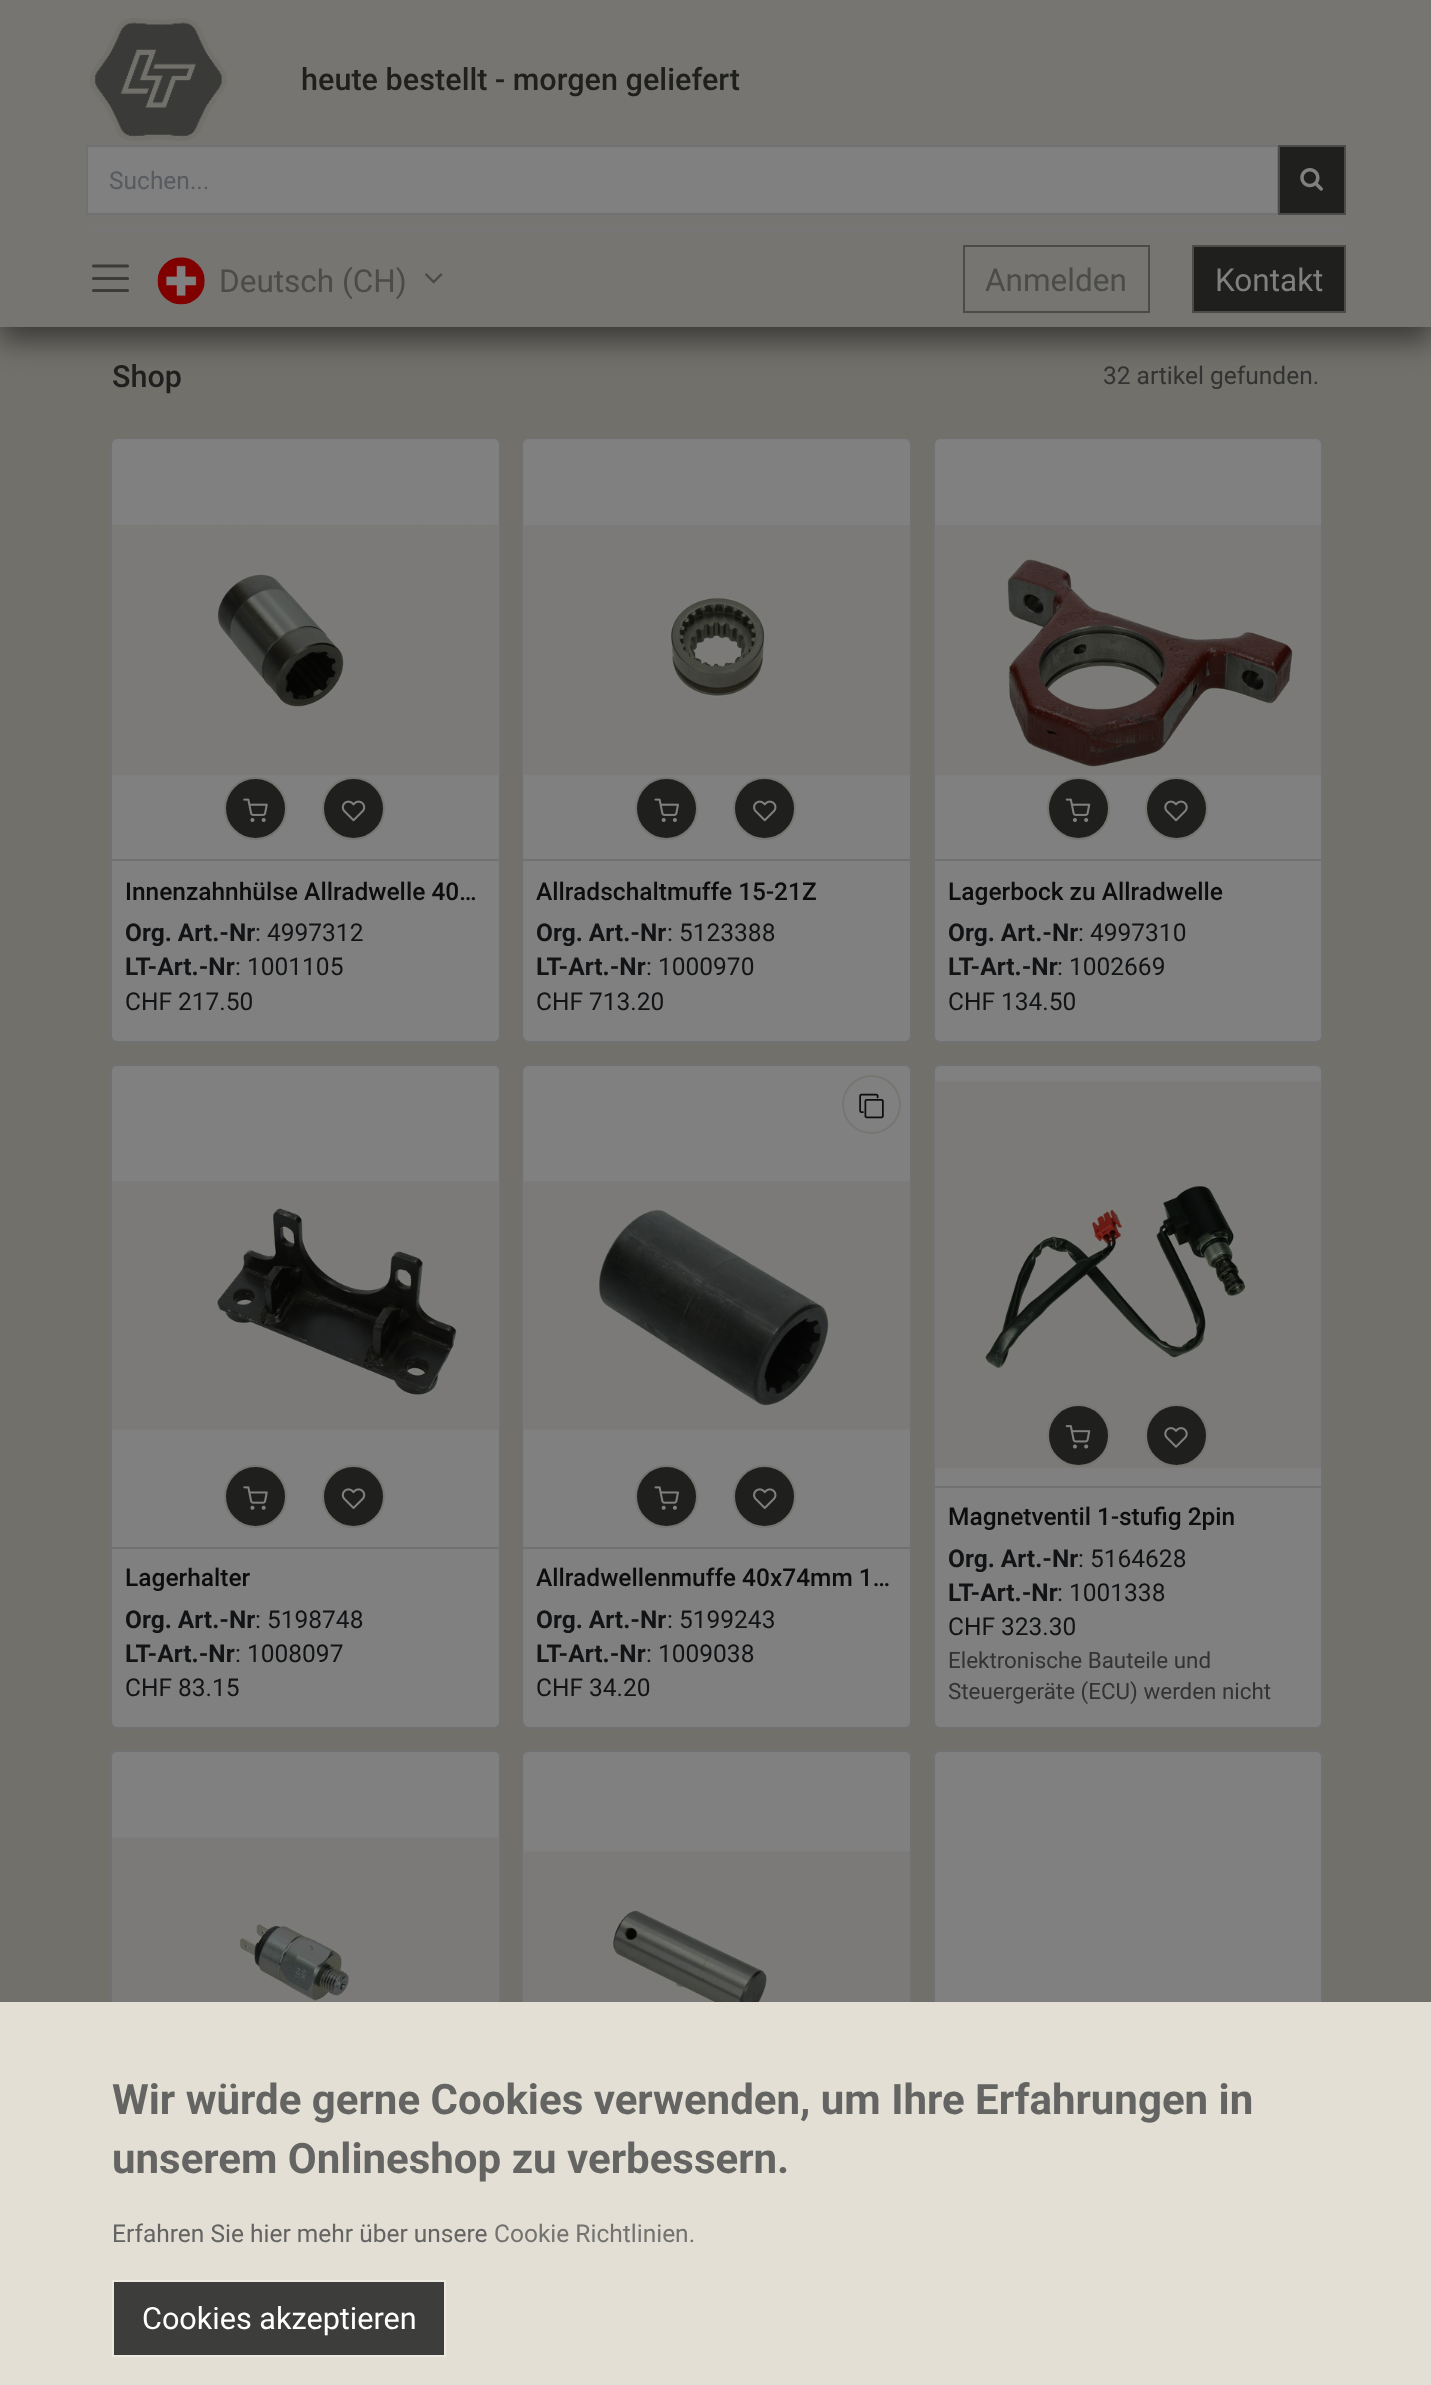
async function draw(canvas) {
  canvas.width = 1431
  canvas.height = 2385
  const ctx = canvas.getContext('2d')
  ctx.miterLimit = 4
  ctx.fontKerning = 'normal'
  async function loadImage(src) {
    const img = new Image()
    img.src = src
    await img.decode()
    return img
  }

  ctx.fillStyle = '#72706b'
  ctx.fillRect(0, 0, 1431, 2385)
  ctx.fillStyle = '#3a3a38'
  ctx.filter = 'blur(14px)'
  ctx.beginPath()
  ctx.rect(0, 14, 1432, 327)
  ctx.fill()
  ctx.filter = 'none'
  ctx.fillStyle = '#767571'
  ctx.fillRect(0, 0, 1431, 327)
  ctx.drawImage(await loadImage('image0.png'), 90, 18, 137, 123)
  ctx.font = '500 30.6px Roboto'
  ctx.fillStyle = '#1f1f1e'
  ctx.fillText('heute bestellt - morgen geliefert', 301, 90)
  ctx.fillStyle = '#808080'
  ctx.beginPath()
  ctx.rect(87, 146, 1191, 68)
  ctx.fill()
  ctx.strokeStyle = '#6f7173'
  ctx.lineWidth = 2
  ctx.stroke()
  ctx.font = '24.5px Roboto'
  ctx.fillStyle = '#575b5f'
  ctx.fillText('Suchen...', 109, 189)
  ctx.fillStyle = '#1f1f1e'
  ctx.beginPath()
  ctx.rect(1279, 146, 66, 68)
  ctx.fill()
  ctx.strokeStyle = '#4b4b49'
  ctx.stroke()
  ctx.drawImage(await loadImage('image1.png'), 1300, 168, 23, 23)
  ctx.fillStyle = '#757678'
  ctx.fillRect(86, 229, 1260, 2)
  ctx.beginPath()
  ctx.moveTo(93.5, 266)
  ctx.lineTo(127.5, 266)
  ctx.moveTo(93.5, 278.5)
  ctx.lineTo(127.5, 278.5)
  ctx.moveTo(93.5, 290.5)
  ctx.lineTo(127.5, 290.5)
  ctx.strokeStyle = '#3b3b39'
  ctx.lineWidth = 3.1
  ctx.lineCap = 'round'
  ctx.stroke()
  ctx.drawImage(await loadImage('image2.png'), 157, 257, 48, 48)
  ctx.font = '31.5px Roboto'
  ctx.fillStyle = '#4b4b49'
  ctx.fillText('Deutsch (CH)', 219, 292)
  ctx.drawImage(await loadImage('image3.png'), 424, 273, 19, 11)
  ctx.strokeStyle = '#4b4b49'
  ctx.lineWidth = 2
  ctx.strokeRect(964, 246, 185, 66)
  ctx.fillText('Anmelden', 985, 291)
  ctx.fillStyle = '#1f1f1e'
  ctx.beginPath()
  ctx.rect(1193, 246, 152, 66)
  ctx.fill()
  ctx.stroke()
  ctx.fillStyle = '#808080'
  ctx.fillText('Kontakt', 1215, 291)
  ctx.font = '500 30.6px Roboto'
  ctx.fillStyle = '#1f1f1e'
  ctx.fillText('Shop', 112, 387)
  ctx.font = '24.5px Roboto'
  ctx.fillStyle = '#323332'
  ctx.fillText('32 artikel gefunden.', 1103, 384)
  ctx.fillStyle = '#808080'
  ctx.beginPath()
  ctx.roundRect(111, 439, 389, 603, 6)
  ctx.fill()
  ctx.strokeStyle = '#6f7173'
  ctx.stroke()
  ctx.fillStyle = '#808080e6'
  ctx.beginPath()
  ctx.roundRect(112, 439, 387, 420, [5, 5, 0, 0])
  ctx.fill()
  ctx.drawImage(await loadImage('image4.png'), 112, 525, 387, 251)
  ctx.fillStyle = '#6f7173'
  ctx.fillRect(112, 859, 387, 2)
  ctx.fillStyle = '#1f1f1e'
  ctx.beginPath()
  ctx.arc(255.5, 808.5, 30.5, 0, 2 * Math.PI)
  ctx.fill()
  ctx.strokeStyle = '#767571'
  ctx.stroke()
  ctx.drawImage(await loadImage('image5.png'), 243, 798, 25, 24)
  ctx.beginPath()
  ctx.arc(353.5, 808.5, 30.5, 0, 2 * Math.PI)
  ctx.fill()
  ctx.stroke()
  ctx.drawImage(await loadImage('image6.png'), 341, 800, 25, 22)
  ctx.font = '500 24.5px Roboto'
  ctx.fillStyle = '#0d0d0d'
  ctx.fillText('Innenzahnhülse Allradwelle 40…', 125, 900)
  ctx.font = 'bold 24.5px Roboto'
  ctx.fillStyle = '#111315'
  ctx.fillText('Org. Art.-Nr', 125, 941)
  ctx.font = '24.5px Roboto'
  ctx.fillText(': 4997312', 255, 941)
  ctx.font = 'bold 24.5px Roboto'
  ctx.fillText('LT-Art.-Nr', 125, 975)
  ctx.font = '24.5px Roboto'
  ctx.fillText(': 1001105', 235, 975)
  ctx.fillText('CHF 217.50', 125, 1010)
  ctx.fillStyle = '#808080'
  ctx.beginPath()
  ctx.roundRect(523, 439, 388, 603, 6)
  ctx.fill()
  ctx.strokeStyle = '#6f7173'
  ctx.stroke()
  ctx.fillStyle = '#808080e6'
  ctx.beginPath()
  ctx.roundRect(523, 439, 387, 420, [5, 5, 0, 0])
  ctx.fill()
  ctx.drawImage(await loadImage('image7.png'), 523, 525, 387, 251)
  ctx.fillStyle = '#808080'
  ctx.beginPath()
  ctx.roundRect(523, 859, 387, 182, [0, 0, 7, 7])
  ctx.fill()
  ctx.fillStyle = '#6f7173'
  ctx.fillRect(523, 859, 387, 2)
  ctx.fillStyle = '#1f1f1e'
  ctx.beginPath()
  ctx.arc(666.5, 808.5, 30.5, 0, 2 * Math.PI)
  ctx.fill()
  ctx.strokeStyle = '#767571'
  ctx.stroke()
  ctx.drawImage(await loadImage('image8.png'), 654, 798, 25, 24)
  ctx.beginPath()
  ctx.arc(764.5, 808.5, 30.5, 0, 2 * Math.PI)
  ctx.fill()
  ctx.stroke()
  ctx.drawImage(await loadImage('image9.png'), 753, 800, 24, 22)
  ctx.font = '500 24.5px Roboto'
  ctx.fillStyle = '#0d0d0d'
  ctx.fillText('Allradschaltmuffe 15-21Z', 536, 900)
  ctx.font = 'bold 24.5px Roboto'
  ctx.fillStyle = '#111315'
  ctx.fillText('Org. Art.-Nr', 536, 941)
  ctx.font = '24.5px Roboto'
  ctx.fillText(': 5123388', 667, 941)
  ctx.font = 'bold 24.5px Roboto'
  ctx.fillText('LT-Art.-Nr', 536, 975)
  ctx.font = '24.5px Roboto'
  ctx.fillText(': 1000970', 646, 975)
  ctx.fillText('CHF 713.20', 536, 1010)
  ctx.fillStyle = '#808080'
  ctx.beginPath()
  ctx.roundRect(934, 439, 388, 603, 6)
  ctx.fill()
  ctx.strokeStyle = '#6f7173'
  ctx.stroke()
  ctx.fillStyle = '#808080e6'
  ctx.beginPath()
  ctx.roundRect(935, 439, 386, 420, [5, 5, 0, 0])
  ctx.fill()
  ctx.drawImage(await loadImage('image10.png'), 934, 525, 387, 251)
  ctx.fillStyle = '#6f7173'
  ctx.fillRect(935, 859, 386, 2)
  ctx.fillStyle = '#1f1f1e'
  ctx.beginPath()
  ctx.arc(1078.5, 808.5, 30.5, 0, 2 * Math.PI)
  ctx.fill()
  ctx.strokeStyle = '#767571'
  ctx.stroke()
  ctx.drawImage(await loadImage('image11.png'), 1065, 798, 26, 24)
  ctx.beginPath()
  ctx.arc(1176.5, 808.5, 30.5, 0, 2 * Math.PI)
  ctx.fill()
  ctx.stroke()
  ctx.drawImage(await loadImage('image12.png'), 1164, 800, 24, 22)
  ctx.font = '500 24.5px Roboto'
  ctx.fillStyle = '#0d0d0d'
  ctx.fillText('Lagerbock zu Allradwelle', 948, 900)
  ctx.font = 'bold 24.5px Roboto'
  ctx.fillStyle = '#111315'
  ctx.fillText('Org. Art.-Nr', 948, 941)
  ctx.font = '24.5px Roboto'
  ctx.fillText(': 4997310', 1078, 941)
  ctx.font = 'bold 24.5px Roboto'
  ctx.fillText('LT-Art.-Nr', 948, 975)
  ctx.font = '24.5px Roboto'
  ctx.fillText(': 1002669', 1057, 975)
  ctx.fillText('CHF 134.50', 948, 1010)
  ctx.fillStyle = '#808080'
  ctx.beginPath()
  ctx.roundRect(111, 1065, 389, 663, 6)
  ctx.fill()
  ctx.strokeStyle = '#6f7173'
  ctx.stroke()
  ctx.fillStyle = '#808080e6'
  ctx.beginPath()
  ctx.roundRect(112, 1066, 387, 481, [5, 5, 0, 0])
  ctx.fill()
  ctx.drawImage(await loadImage('image13.png'), 112, 1181, 387, 249)
  ctx.fillStyle = '#6f7173'
  ctx.fillRect(112, 1547, 387, 2)
  ctx.fillStyle = '#1f1f1e'
  ctx.beginPath()
  ctx.arc(255.5, 1496.5, 30.5, 0, 2 * Math.PI)
  ctx.fill()
  ctx.strokeStyle = '#767571'
  ctx.stroke()
  ctx.drawImage(await loadImage('image14.png'), 243, 1486, 25, 24)
  ctx.beginPath()
  ctx.arc(353.5, 1496.5, 30.5, 0, 2 * Math.PI)
  ctx.fill()
  ctx.stroke()
  ctx.drawImage(await loadImage('image15.png'), 341, 1488, 25, 21)
  ctx.font = '500 24.5px Roboto'
  ctx.fillStyle = '#0d0d0d'
  ctx.fillText('Lagerhalter', 125, 1586)
  ctx.font = 'bold 24.5px Roboto'
  ctx.fillStyle = '#111315'
  ctx.fillText('Org. Art.-Nr', 125, 1628)
  ctx.font = '24.5px Roboto'
  ctx.fillText(': 5198748', 255, 1628)
  ctx.font = 'bold 24.5px Roboto'
  ctx.fillText('LT-Art.-Nr', 125, 1662)
  ctx.font = '24.5px Roboto'
  ctx.fillText(': 1008097', 235, 1662)
  ctx.fillText('CHF 83.15', 125, 1696)
  ctx.fillStyle = '#808080'
  ctx.beginPath()
  ctx.roundRect(523, 1065, 388, 663, 6)
  ctx.fill()
  ctx.strokeStyle = '#6f7173'
  ctx.stroke()
  ctx.fillStyle = '#808080e6'
  ctx.beginPath()
  ctx.roundRect(523, 1066, 387, 481, [5, 5, 0, 0])
  ctx.fill()
  ctx.beginPath()
  ctx.arc(871.5, 1104.5, 28.5, 0, 2 * Math.PI)
  ctx.strokeStyle = '#767571'
  ctx.stroke()
  ctx.drawImage(await loadImage('image16.png'), 859, 1093, 25, 26)
  ctx.drawImage(await loadImage('image17.png'), 523, 1181, 387, 249)
  ctx.fillStyle = '#808080'
  ctx.beginPath()
  ctx.roundRect(523, 1547, 387, 180, [0, 0, 7, 7])
  ctx.fill()
  ctx.fillStyle = '#6f7173'
  ctx.fillRect(523, 1547, 387, 2)
  ctx.fillStyle = '#1f1f1e'
  ctx.beginPath()
  ctx.arc(666.5, 1496.5, 30.5, 0, 2 * Math.PI)
  ctx.fill()
  ctx.stroke()
  ctx.drawImage(await loadImage('image18.png'), 654, 1486, 25, 24)
  ctx.beginPath()
  ctx.arc(764.5, 1496.5, 30.5, 0, 2 * Math.PI)
  ctx.fill()
  ctx.stroke()
  ctx.drawImage(await loadImage('image19.png'), 753, 1488, 24, 21)
  ctx.font = '500 24.5px Roboto'
  ctx.fillStyle = '#0d0d0d'
  ctx.fillText('Allradwellenmuffe 40x74mm 1…', 536, 1586)
  ctx.font = 'bold 24.5px Roboto'
  ctx.fillStyle = '#111315'
  ctx.fillText('Org. Art.-Nr', 536, 1628)
  ctx.font = '24.5px Roboto'
  ctx.fillText(': 5199243', 667, 1628)
  ctx.font = 'bold 24.5px Roboto'
  ctx.fillText('LT-Art.-Nr', 536, 1662)
  ctx.font = '24.5px Roboto'
  ctx.fillText(': 1009038', 646, 1662)
  ctx.fillText('CHF 34.20', 536, 1696)
  ctx.fillStyle = '#808080'
  ctx.beginPath()
  ctx.roundRect(934, 1065, 388, 663, 6)
  ctx.fill()
  ctx.strokeStyle = '#6f7173'
  ctx.stroke()
  ctx.fillStyle = '#808080e6'
  ctx.beginPath()
  ctx.roundRect(935, 1066, 386, 420, [5, 5, 0, 0])
  ctx.fill()
  ctx.drawImage(await loadImage('image20.png'), 934, 1081, 387, 388)
  ctx.fillStyle = '#6f7173'
  ctx.fillRect(935, 1486, 386, 2)
  ctx.fillStyle = '#1f1f1e'
  ctx.beginPath()
  ctx.arc(1078.5, 1435.5, 30.5, 0, 2 * Math.PI)
  ctx.fill()
  ctx.strokeStyle = '#767571'
  ctx.stroke()
  ctx.drawImage(await loadImage('image21.png'), 1065, 1425, 26, 24)
  ctx.beginPath()
  ctx.arc(1176.5, 1435.5, 30.5, 0, 2 * Math.PI)
  ctx.fill()
  ctx.stroke()
  ctx.drawImage(await loadImage('image22.png'), 1164, 1427, 24, 21)
  ctx.font = '500 24.5px Roboto'
  ctx.fillStyle = '#0d0d0d'
  ctx.fillText('Magnetventil 1-stufig 2pin', 948, 1525)
  ctx.font = 'bold 24.5px Roboto'
  ctx.fillStyle = '#111315'
  ctx.fillText('Org. Art.-Nr', 948, 1567)
  ctx.font = '24.5px Roboto'
  ctx.fillText(': 5164628', 1078, 1567)
  ctx.font = 'bold 24.5px Roboto'
  ctx.fillText('LT-Art.-Nr', 948, 1601)
  ctx.font = '24.5px Roboto'
  ctx.fillText(': 1001338', 1057, 1601)
  ctx.fillText('CHF 323.30', 948, 1635)
  ctx.font = '22.4px Roboto'
  ctx.fillStyle = '#323332'
  ctx.fillText('Elektronische Bauteile und', 948, 1668)
  ctx.fillText('Steuergeräte (ECU) werden nicht', 948, 1699)
  ctx.fillStyle = '#808080'
  ctx.beginPath()
  ctx.roundRect(110, 1750, 391, 635, [7, 7, 0, 0])
  ctx.fill()
  ctx.beginPath()
  ctx.roundRect(111, 1751, 389, 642, 6)
  ctx.strokeStyle = '#6f7173'
  ctx.stroke()
  ctx.fillStyle = '#808080e6'
  ctx.beginPath()
  ctx.roundRect(112, 1752, 387, 420, [5, 5, 0, 0])
  ctx.fill()
  ctx.drawImage(await loadImage('image23.png'), 112, 1837, 387, 165)
  ctx.fillStyle = '#808080'
  ctx.beginPath()
  ctx.roundRect(522, 1750, 390, 635, [7, 7, 0, 0])
  ctx.fill()
  ctx.beginPath()
  ctx.roundRect(523, 1751, 388, 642, 6)
  ctx.stroke()
  ctx.fillStyle = '#808080e6'
  ctx.beginPath()
  ctx.roundRect(523, 1752, 387, 450, [5, 5, 0, 0])
  ctx.fill()
  ctx.drawImage(await loadImage('image24.png'), 523, 1851, 387, 151)
  ctx.fillStyle = '#808080'
  ctx.beginPath()
  ctx.roundRect(933, 1750, 390, 635, [7, 7, 0, 0])
  ctx.fill()
  ctx.beginPath()
  ctx.roundRect(934, 1751, 388, 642, 6)
  ctx.stroke()
  ctx.fillStyle = '#808080e6'
  ctx.beginPath()
  ctx.roundRect(935, 1752, 386, 450, [5, 5, 0, 0])
  ctx.fill()
  ctx.fillStyle = '#e4dfd5'
  ctx.fillRect(0, 2002, 1431, 383)
  ctx.font = 'bold 42px Roboto'
  ctx.fillStyle = '#646563'
  ctx.fillText('Wir würde gerne Cookies verwenden, um Ihre Erfahrungen in', 112, 2114)
  ctx.fillText('unserem Onlineshop zu verbessern.', 112, 2173)
  ctx.font = '24.5px Roboto'
  ctx.fillText('Erfahren Sie hier mehr über unsere', 112, 2242)
  ctx.fillStyle = '#737470'
  ctx.fillText('Cookie Richtlinien.', 494, 2242)
  ctx.fillStyle = '#3d3d3c'
  ctx.beginPath()
  ctx.rect(113, 2281, 332, 75)
  ctx.fill()
  ctx.strokeStyle = '#ece9e1'
  ctx.stroke()
  ctx.font = '30.6px Roboto'
  ctx.fillStyle = '#fff'
  ctx.fillText('Cookies akzeptieren', 142, 2329)
}

draw(document.querySelector('canvas'))
